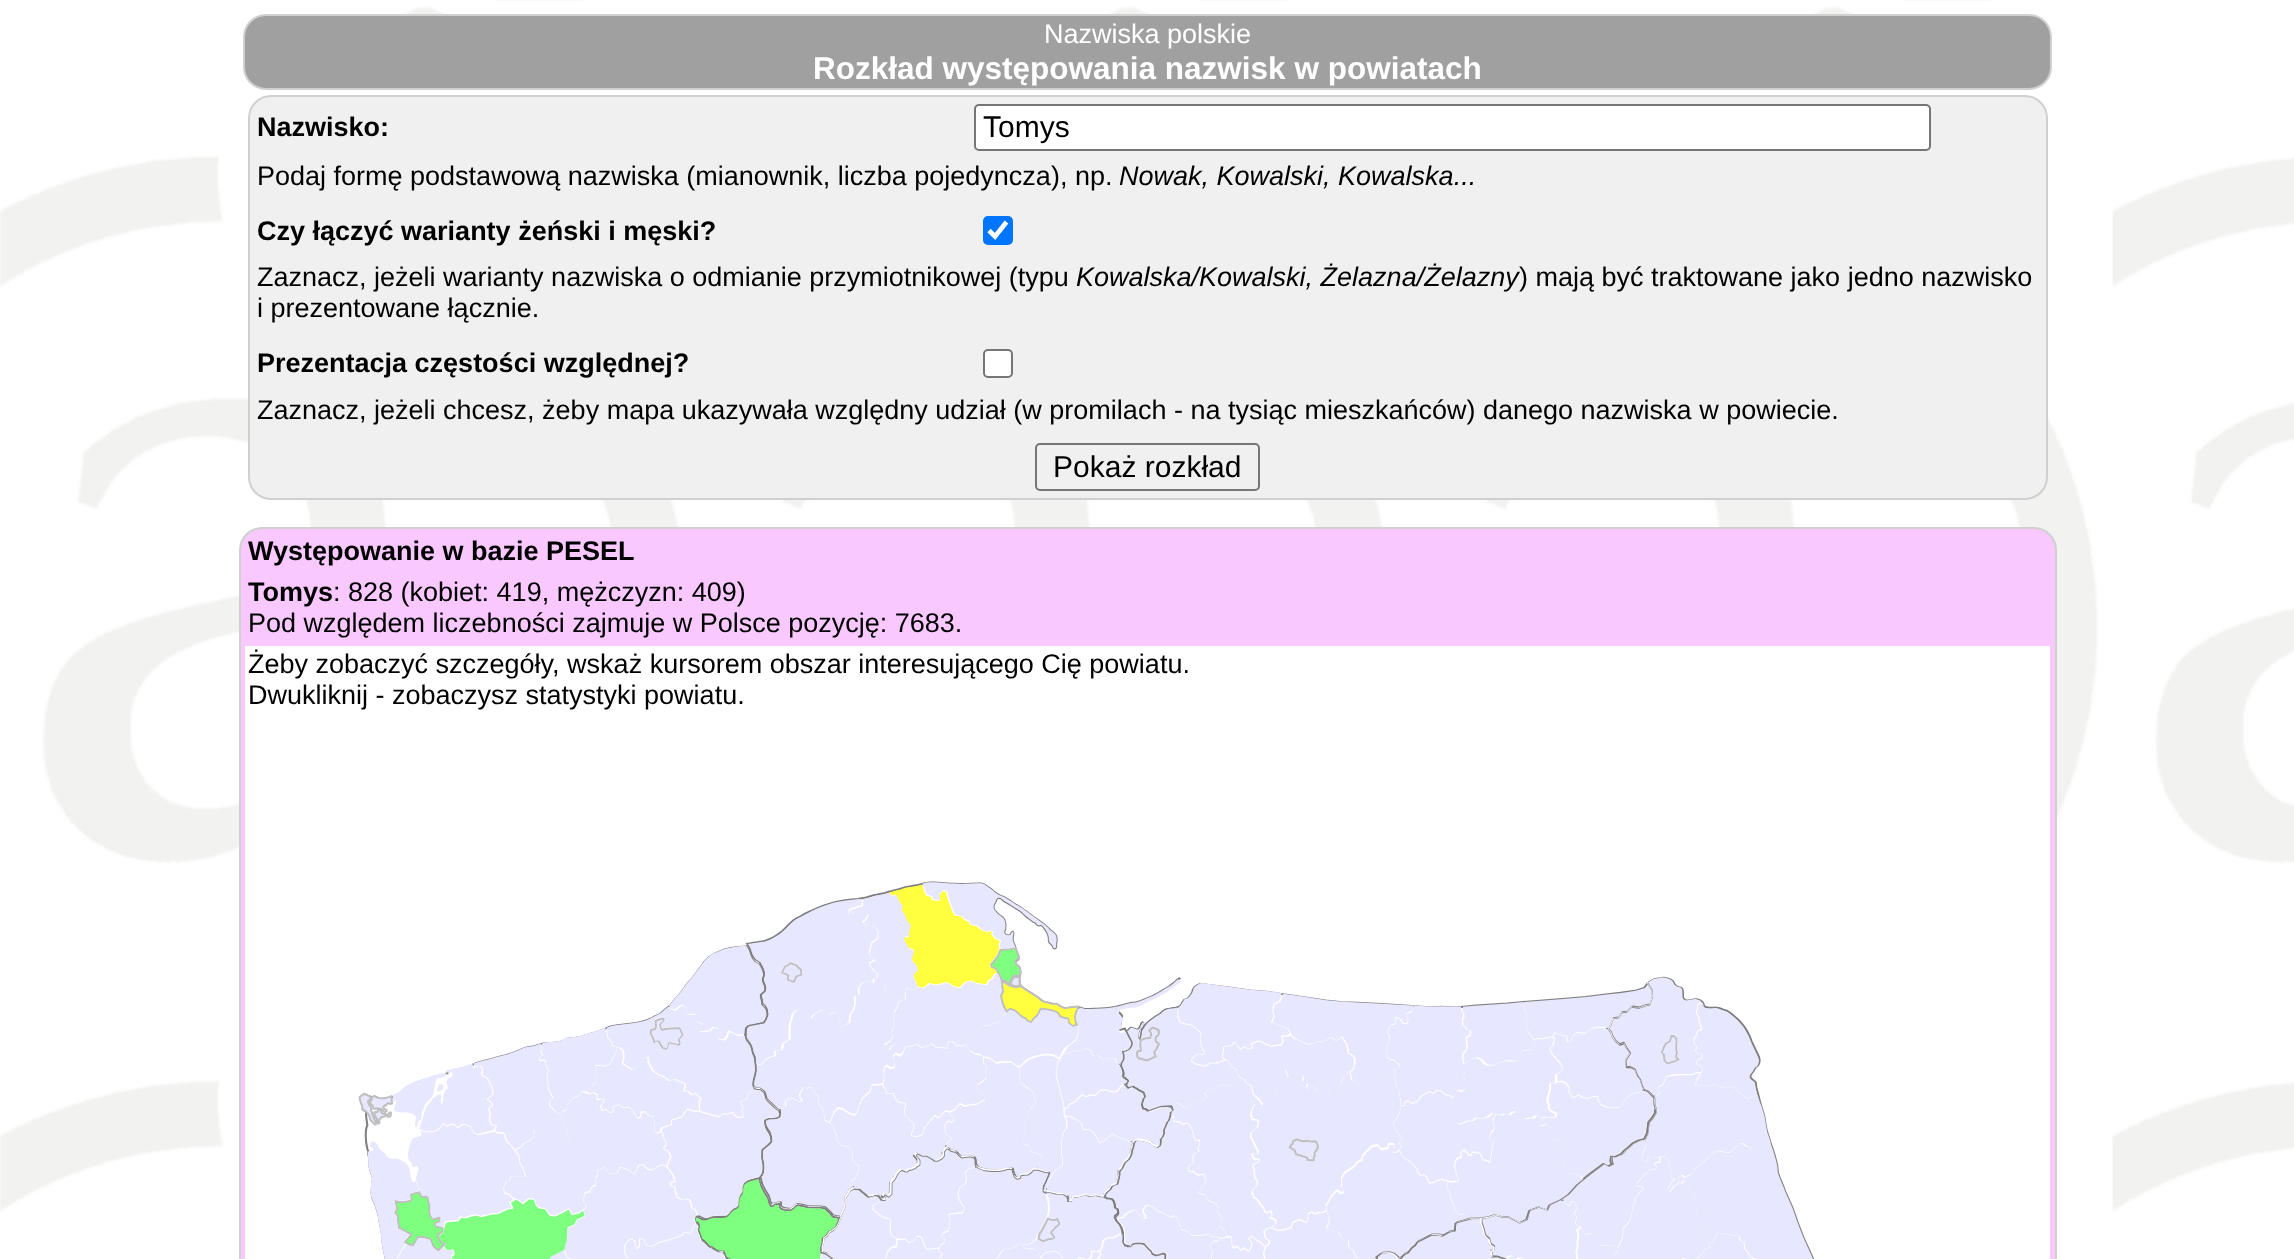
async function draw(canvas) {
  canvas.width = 2294
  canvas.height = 1259
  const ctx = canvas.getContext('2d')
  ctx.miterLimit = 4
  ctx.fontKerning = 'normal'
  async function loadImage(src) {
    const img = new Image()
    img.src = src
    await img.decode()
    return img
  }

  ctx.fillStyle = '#fff'
  ctx.fillRect(0, 0, 2294, 1259)
  ctx.drawImage(await loadImage('image0.png'), 0, 0, 2294, 1223)
  ctx.fillStyle = '#a0a0a0'
  ctx.beginPath()
  ctx.roundRect(244, 15, 1807, 74, 22)
  ctx.fill()
  ctx.strokeStyle = '#d0d0d0'
  ctx.lineWidth = 2
  ctx.stroke()
  ctx.font = '27px Liberation Sans'
  ctx.fillStyle = '#fff'
  ctx.fillText('Nazwiska polskie', 1044, 43)
  ctx.font = 'bold 31.5px Liberation Sans'
  ctx.fillText('Rozkład występowania nazwisk w powiatach', 813, 79)
  ctx.fillStyle = '#f0f0f0'
  ctx.beginPath()
  ctx.roundRect(249, 96, 1798, 403, 22)
  ctx.fill()
  ctx.stroke()
  ctx.font = 'bold 27px Liberation Sans'
  ctx.fillStyle = '#000'
  ctx.fillText('Nazwisko:', 257, 136)
  ctx.fillStyle = '#fff'
  ctx.beginPath()
  ctx.roundRect(975, 105, 955, 45, 4)
  ctx.fill()
  ctx.strokeStyle = '#767676'
  ctx.stroke()
  ctx.font = '30px Liberation Sans'
  ctx.fillStyle = '#000'
  ctx.fillText('Tomys', 983, 137)
  ctx.font = '27px Liberation Sans'
  ctx.fillText('Podaj formę podstawową nazwiska (mianownik, liczba pojedyncza), np.', 257, 185)
  ctx.font = 'italic 27px Liberation Sans'
  ctx.fillText('Nowak, Kowalski, Kowalska...', 1119, 185)
  ctx.font = 'bold 27px Liberation Sans'
  ctx.fillText('Czy łączyć warianty żeński i męski?', 257, 240)
  ctx.fillStyle = '#0075ff'
  ctx.beginPath()
  ctx.roundRect(983, 216, 30, 29, 5)
  ctx.fill()
  ctx.beginPath()
  ctx.moveTo(989, 230.5)
  ctx.lineTo(995, 236.5)
  ctx.lineTo(1006.5, 222)
  ctx.strokeStyle = '#fff'
  ctx.lineWidth = 4.7
  ctx.stroke()
  ctx.font = '27px Liberation Sans'
  ctx.fillStyle = '#000'
  ctx.fillText('Zaznacz, jeżeli warianty nazwiska o odmianie przymiotnikowej (typu', 257, 286)
  ctx.font = 'italic 27px Liberation Sans'
  ctx.fillText('Kowalska/Kowalski, Żelazna/Żelazny', 1076, 286)
  ctx.font = '27px Liberation Sans'
  ctx.fillText(') mają być traktowane jako jedno nazwisko', 1519, 286)
  ctx.fillText('i prezentowane łącznie.', 257, 317)
  ctx.font = 'bold 27px Liberation Sans'
  ctx.fillText('Prezentacja częstości względnej?', 257, 372)
  ctx.fillStyle = '#fff'
  ctx.beginPath()
  ctx.roundRect(984, 350, 28, 27, 4)
  ctx.fill()
  ctx.strokeStyle = '#767676'
  ctx.lineWidth = 2
  ctx.stroke()
  ctx.font = '27px Liberation Sans'
  ctx.fillStyle = '#000'
  ctx.fillText('Zaznacz, jeżeli chcesz, żeby mapa ukazywała względny udział (w promilach - na tysiąc mieszkańców) danego nazwiska w powiecie.', 257, 419)
  ctx.beginPath()
  ctx.roundRect(1036, 444, 223, 46, 4)
  ctx.stroke()
  ctx.font = '30px Liberation Sans'
  ctx.fillText('Pokaż rozkład', 1053, 477)
  ctx.fillStyle = '#f8c8ff'
  ctx.beginPath()
  ctx.roundRect(240, 528, 1816, 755, 22)
  ctx.fill()
  ctx.strokeStyle = '#d0d0d0'
  ctx.stroke()
  ctx.font = 'bold 27px Liberation Sans'
  ctx.fillStyle = '#000'
  ctx.fillText('Występowanie w bazie PESEL', 248, 560)
  ctx.fillText('Tomys', 248, 601)
  ctx.font = '27px Liberation Sans'
  ctx.fillText(': 828 (kobiet: 419, mężczyzn: 409)', 333, 601)
  ctx.fillText('Pod względem liczebności zajmuje w Polsce pozycję: 7683.', 248, 632)
  ctx.fillStyle = '#fff'
  ctx.fillRect(245, 646, 1805, 613)
  ctx.fillStyle = '#000'
  ctx.fillText('Żeby zobaczyć szczegóły, wskaż kursorem obszar interesującego Cię powiatu.', 248, 673)
  ctx.fillText('Dwukliknij - zobaczysz statystyki powiatu.', 248, 704)
  ctx.drawImage(await loadImage('image1.png'), 358, 881, 1457, 378)
}

draw(document.querySelector('canvas'))
